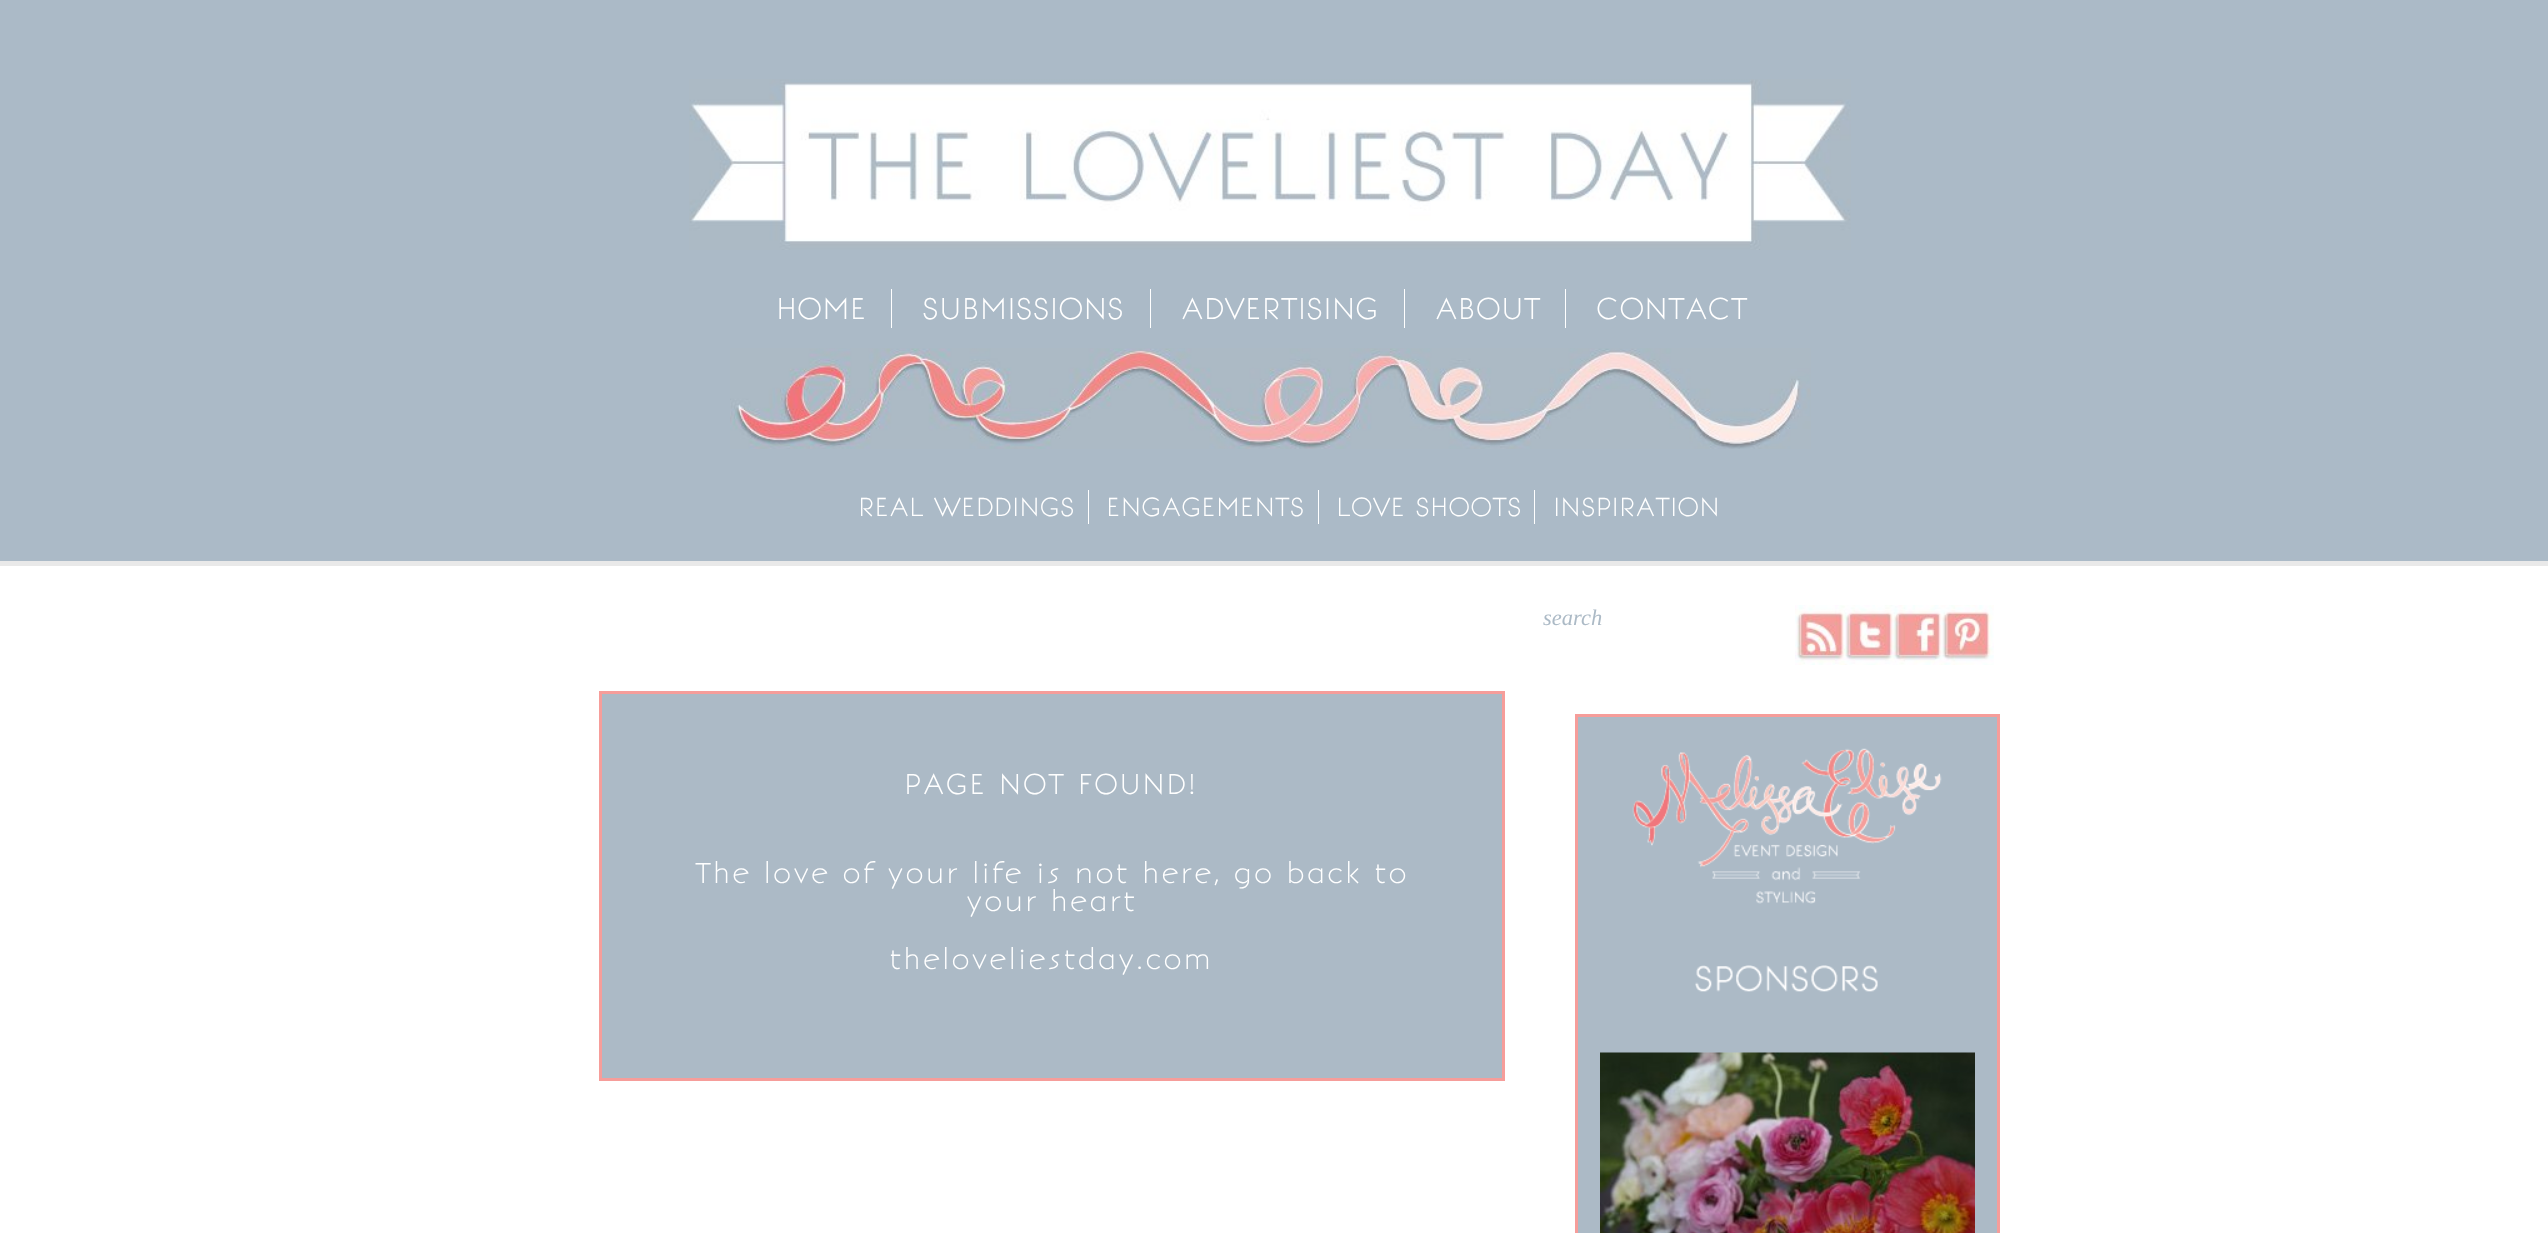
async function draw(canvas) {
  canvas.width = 2548
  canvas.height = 1233
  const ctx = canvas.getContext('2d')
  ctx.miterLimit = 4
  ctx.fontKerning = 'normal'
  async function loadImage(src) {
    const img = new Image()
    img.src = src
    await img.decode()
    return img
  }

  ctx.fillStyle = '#fff'
  ctx.fillRect(0, 0, 2548, 1233)
  ctx.fillStyle = '#abbac7'
  ctx.fillRect(0, 0, 2548, 561)
  ctx.fillStyle = '#e9e9e9'
  ctx.fillRect(0, 561, 2548, 5)
  ctx.drawImage(await loadImage('image0.png'), 689, 79, 1162, 171)
  ctx.font = '300 28.75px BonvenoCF'
  ctx.fillStyle = '#fff'
  ctx.fillText('HOME', 776, 319)
  ctx.fillRect(891, 289, 1, 39)
  ctx.fillText('SUBMISSIONS', 922, 319)
  ctx.fillRect(1150, 289, 1, 39)
  ctx.fillText('ADVERTISING', 1181, 319)
  ctx.fillRect(1404, 289, 1, 39)
  ctx.fillText('ABOUT', 1435, 319)
  ctx.fillRect(1565, 289, 1, 39)
  ctx.fillText('CONTACT', 1596, 319)
  ctx.drawImage(await loadImage('image1.png'), 730, 348, 1081, 101)
  ctx.font = '300 25px BonvenoCF'
  ctx.fillText('REAL WEDDINGS', 858, 516)
  ctx.fillRect(1088, 490, 1, 34)
  ctx.fillText('ENGAGEMENTS', 1106, 516)
  ctx.fillRect(1318, 490, 1, 34)
  ctx.fillText('LOVE SHOOTS', 1336, 516)
  ctx.fillRect(1534, 490, 1, 34)
  ctx.fillText('INSPIRATION', 1553, 516)
  ctx.font = 'italic 22.5px Liberation Serif'
  ctx.fillStyle = '#acbac6'
  ctx.fillText('search', 1543, 625)
  ctx.drawImage(await loadImage('image2.png'), 1795, 605, 199, 60)
  ctx.beginPath()
  ctx.rect(1576.5, 715.5, 422, 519)
  ctx.fill()
  ctx.strokeStyle = '#f69d9a'
  ctx.lineWidth = 3
  ctx.stroke()
  ctx.drawImage(await loadImage('image3.png'), 1632, 748, 310, 156)
  ctx.drawImage(await loadImage('image4.png'), 1695, 965, 183, 27)
  ctx.drawImage(await loadImage('image5.png'), 1600, 1052, 375, 181)
  ctx.beginPath()
  ctx.rect(600.5, 692.5, 903, 387)
  ctx.fill()
  ctx.stroke()
  ctx.letterSpacing = '1.25px'
  ctx.font = '300 27.5px BonvenoCF'
  ctx.fillStyle = '#fff'
  ctx.fillText('PAGE NOT FOUND!', 904, 794)
  ctx.fillText('The love of your life is not here, go back to', 695, 883)
  ctx.fillText('your heart', 966, 911)
  ctx.fillText('theloveliestday.com', 889, 969)
}

draw(document.querySelector('canvas'))
